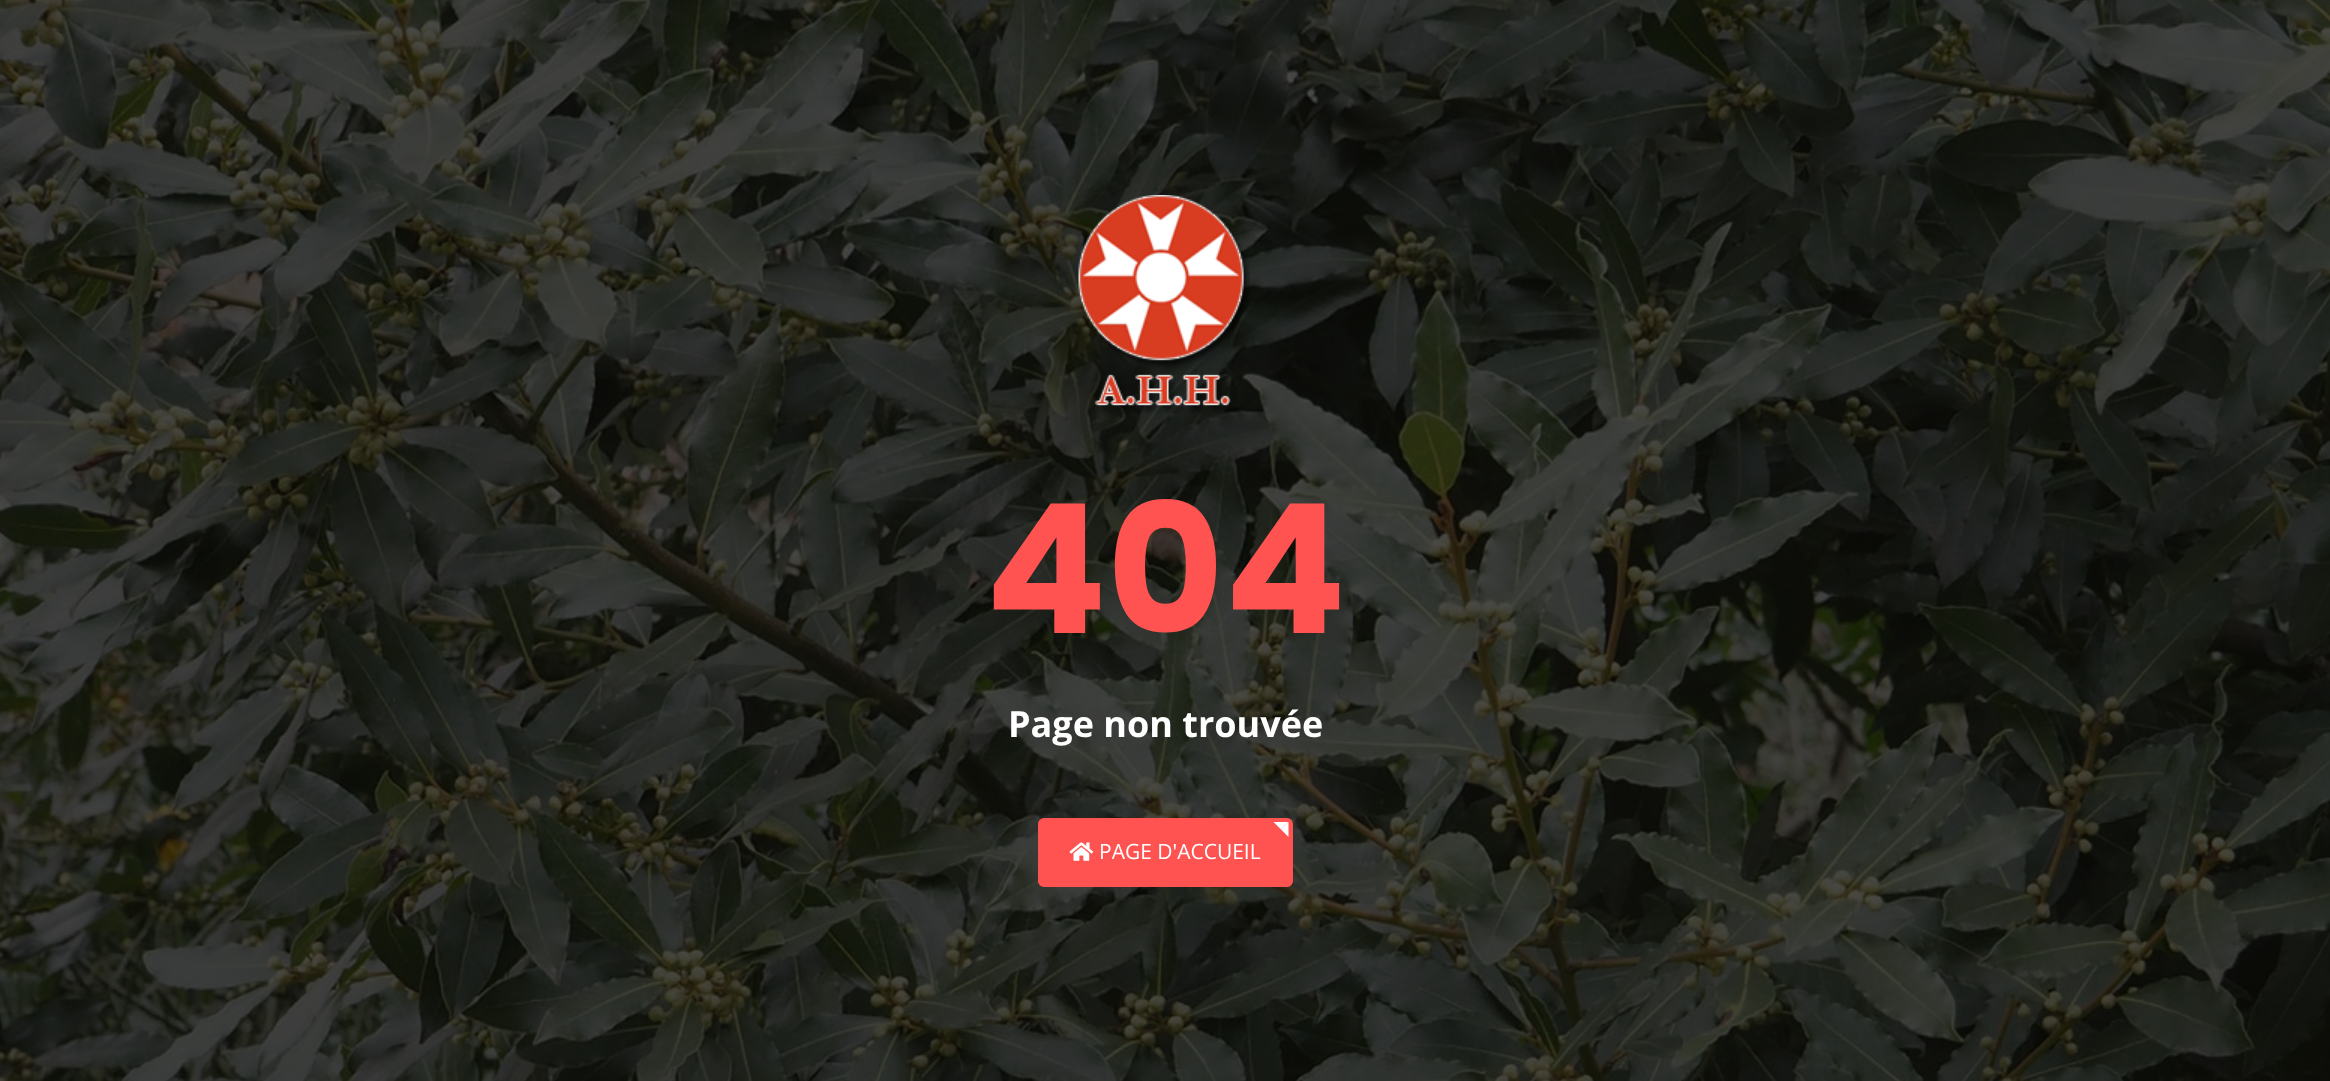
async function draw(canvas) {
  canvas.width = 2330
  canvas.height = 1081
  const ctx = canvas.getContext('2d')
  ctx.miterLimit = 4
  ctx.fontKerning = 'normal'
  async function loadImage(src) {
    const img = new Image()
    img.src = src
    await img.decode()
    return img
  }

  ctx.fillStyle = '#fff'
  ctx.fillRect(0, 0, 2330, 1081)
  ctx.drawImage(await loadImage('image0.png'), 0, 0, 2330, 1081)
  ctx.drawImage(await loadImage('image1.png'), 1078, 195, 172, 218)
  ctx.font = 'bold 180px Poppins'
  ctx.fillStyle = '#ff5351'
  ctx.fillText('404', 985, 633)
  ctx.font = 'bold 36px Open Sans'
  ctx.fillStyle = '#fff'
  ctx.fillText('Page non trouvée', 1008, 737)
  ctx.fillStyle = '#ff5351'
  ctx.beginPath()
  ctx.roundRect(1039, 819, 253, 67, 5)
  ctx.fill()
  ctx.strokeStyle = '#ff5351'
  ctx.lineWidth = 2
  ctx.stroke()
  ctx.fillStyle = '#fff'
  ctx.beginPath()
  ctx.moveTo(1273.5, 822)
  ctx.lineTo(1288.5, 822)
  ctx.lineTo(1281, 829.5)
  ctx.closePath()
  ctx.fill()
  ctx.beginPath()
  ctx.moveTo(1288.5, 822)
  ctx.lineTo(1288.5, 837)
  ctx.lineTo(1281, 829.5)
  ctx.closePath()
  ctx.fill()
  ctx.drawImage(await loadImage('image2.png'), 1069, 842, 25, 19)
  ctx.font = '21px Open Sans'
  ctx.fillText('PAGE D\'ACCUEIL', 1099, 859)
}

draw(document.querySelector('canvas'))
